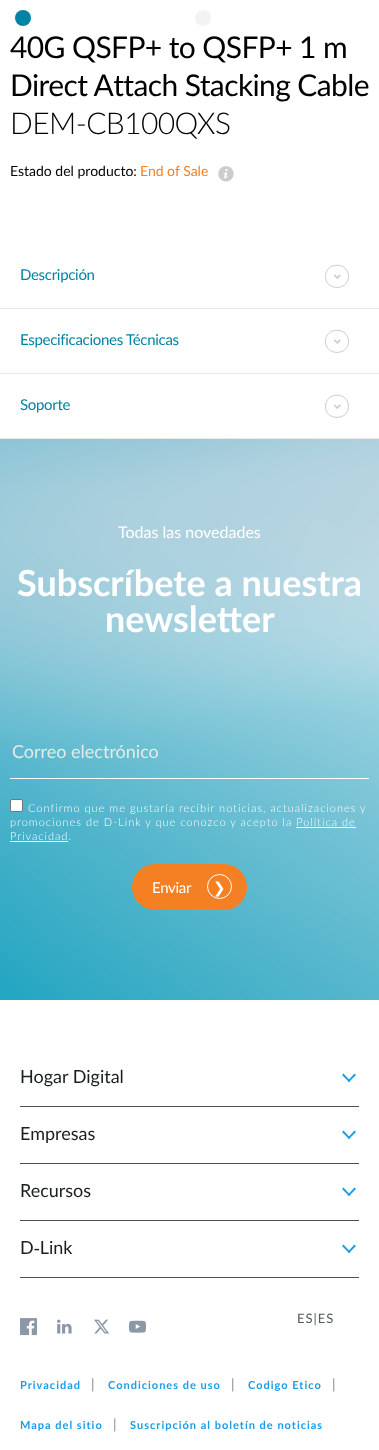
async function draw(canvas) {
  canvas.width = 379
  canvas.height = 1450
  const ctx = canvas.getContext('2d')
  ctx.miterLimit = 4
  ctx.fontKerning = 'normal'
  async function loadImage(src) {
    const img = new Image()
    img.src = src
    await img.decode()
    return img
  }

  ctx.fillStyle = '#fff'
  ctx.fillRect(0, 0, 379, 1450)
  ctx.fillStyle = '#0083a5'
  ctx.beginPath()
  ctx.arc(23, 18, 8, 0, 2 * Math.PI)
  ctx.fill()
  ctx.fillStyle = '#f3f3f3'
  ctx.beginPath()
  ctx.arc(203, 18, 8, 0, 2 * Math.PI)
  ctx.fill()
  ctx.letterSpacing = '-0.6px'
  ctx.font = '30px Lato'
  ctx.fillStyle = '#000'
  ctx.fillText('40G QSFP+ to QSFP+ 1 m', 10, 58)
  ctx.fillText('Direct Attach Stacking Cable', 10, 96)
  ctx.font = '300 30px Lato'
  ctx.fillText('DEM-CB100QXS', 10, 134)
  ctx.letterSpacing = '0px'
  ctx.font = '14px Lato'
  ctx.fillText('Estado del producto:', 10, 176)
  ctx.fillStyle = '#f57f23'
  ctx.fillText('End of Sale', 140, 176)
  ctx.drawImage(await loadImage('image0.png'), 218, 166, 16, 16)
  ctx.fillStyle = '#eaeaea'
  ctx.fillRect(0, 308, 379, 1)
  ctx.letterSpacing = '-0.3px'
  ctx.font = '15px Lato'
  ctx.fillStyle = '#0083a5'
  ctx.fillText('Descripción', 20, 280)
  ctx.beginPath()
  ctx.moveTo(348.5, 276.5)
  ctx.bezierCurveTo(348.5, 291, 325.5, 291, 325.5, 276.5)
  ctx.bezierCurveTo(325.5, 261.5, 348.5, 261.5, 348.5, 276.5)
  ctx.closePath()
  ctx.strokeStyle = '#cdcccb'
  ctx.stroke()
  ctx.drawImage(await loadImage('image1.png'), 333, 274, 8, 5)
  ctx.fillStyle = '#eaeaea'
  ctx.fillRect(0, 373, 379, 1)
  ctx.fillStyle = '#0083a5'
  ctx.fillText('Especificaciones Técnicas', 20, 345)
  ctx.beginPath()
  ctx.moveTo(348.5, 341.5)
  ctx.bezierCurveTo(348.5, 356, 325.5, 356, 325.5, 341.5)
  ctx.bezierCurveTo(325.5, 326.5, 348.5, 326.5, 348.5, 341.5)
  ctx.closePath()
  ctx.stroke()
  ctx.drawImage(await loadImage('image1.png'), 333, 339, 8, 5)
  ctx.fillStyle = '#eaeaea'
  ctx.fillRect(0, 438, 379, 1)
  ctx.fillStyle = '#0083a5'
  ctx.fillText('Soporte', 20, 410)
  ctx.beginPath()
  ctx.moveTo(348.5, 406.5)
  ctx.bezierCurveTo(348.5, 421, 325.5, 421, 325.5, 406.5)
  ctx.bezierCurveTo(325.5, 391.5, 348.5, 391.5, 348.5, 406.5)
  ctx.closePath()
  ctx.stroke()
  ctx.drawImage(await loadImage('image1.png'), 333, 404, 8, 5)
  ctx.drawImage(await loadImage('image2.png'), 0, 439, 379, 561)
  ctx.letterSpacing = '0px'
  ctx.font = '16px Lato'
  ctx.fillStyle = '#fff'
  ctx.fillText('Todas las novedades', 118, 538)
  ctx.font = 'bold 36px Lato'
  ctx.fillText('Subscríbete a nuestra', 17, 596)
  ctx.fillText('newsletter', 105, 632)
  ctx.fillRect(10, 778, 359, 1)
  ctx.font = '18px Lato'
  ctx.fillStyle = '#e8e8e8'
  ctx.fillText('Correo electrónico', 12, 758)
  ctx.fillStyle = '#fff'
  ctx.beginPath()
  ctx.roundRect(10.5, 799.5, 12, 12, 1.5)
  ctx.fill()
  ctx.strokeStyle = '#767676'
  ctx.stroke()
  ctx.letterSpacing = '1px'
  ctx.font = '300 11px Lato'
  ctx.fillText('Confirmo que me gustaría recibir noticias, actualizaciones y', 28, 812)
  ctx.fillText('promociones de D-Link y que conozco y acepto la Política de', 10, 826)
  ctx.fillRect(296, 827, 60, 1)
  ctx.fillText('Privacidad.', 10, 840)
  ctx.fillRect(10, 841, 58, 1)
  ctx.fillStyle = '#f57f23'
  ctx.beginPath()
  ctx.roundRect(132, 864, 115, 46, 23)
  ctx.fill()
  ctx.letterSpacing = '-0.3px'
  ctx.font = '15px Lato'
  ctx.fillStyle = '#fff'
  ctx.fillText('Enviar', 152, 893)
  ctx.beginPath()
  ctx.arc(219.5, 886.5, 12, 0, 2 * Math.PI)
  ctx.strokeStyle = '#fff'
  ctx.stroke()
  ctx.font = '15px DejaVu Sans'
  ctx.fillText('❯', 213, 893)
  ctx.fillStyle = '#4c5254'
  ctx.fillRect(20, 1106, 339, 1)
  ctx.letterSpacing = '0px'
  ctx.font = '18px Lato'
  ctx.fillStyle = '#191f21'
  ctx.fillText('Hogar Digital', 20, 1083)
  ctx.fillStyle = '#1b9de7'
  ctx.beginPath()
  ctx.moveTo(354.5, 1073.5)
  ctx.lineTo(356, 1075)
  ctx.lineTo(349, 1082)
  ctx.lineTo(347.5, 1081)
  ctx.closePath()
  ctx.fill()
  ctx.beginPath()
  ctx.moveTo(343.5, 1073.5)
  ctx.lineTo(350.5, 1081)
  ctx.lineTo(349, 1082)
  ctx.lineTo(342, 1075)
  ctx.closePath()
  ctx.fill()
  ctx.fillStyle = '#4c5254'
  ctx.fillRect(20, 1163, 339, 1)
  ctx.fillStyle = '#191f21'
  ctx.fillText('Empresas', 20, 1140)
  ctx.fillStyle = '#1b9de7'
  ctx.beginPath()
  ctx.moveTo(354.5, 1130.5)
  ctx.lineTo(356, 1132)
  ctx.lineTo(349, 1139)
  ctx.lineTo(347.5, 1138)
  ctx.closePath()
  ctx.fill()
  ctx.beginPath()
  ctx.moveTo(343.5, 1130.5)
  ctx.lineTo(350.5, 1138)
  ctx.lineTo(349, 1139)
  ctx.lineTo(342, 1132)
  ctx.closePath()
  ctx.fill()
  ctx.fillStyle = '#4c5254'
  ctx.fillRect(20, 1220, 339, 1)
  ctx.fillStyle = '#191f21'
  ctx.fillText('Recursos', 20, 1197)
  ctx.fillStyle = '#1b9de7'
  ctx.beginPath()
  ctx.moveTo(354.5, 1187.5)
  ctx.lineTo(356, 1189)
  ctx.lineTo(349, 1196)
  ctx.lineTo(347.5, 1195)
  ctx.closePath()
  ctx.fill()
  ctx.beginPath()
  ctx.moveTo(343.5, 1187.5)
  ctx.lineTo(350.5, 1195)
  ctx.lineTo(349, 1196)
  ctx.lineTo(342, 1189)
  ctx.closePath()
  ctx.fill()
  ctx.fillStyle = '#4c5254'
  ctx.fillRect(20, 1277, 339, 1)
  ctx.fillStyle = '#191f21'
  ctx.fillText('D‑Link', 20, 1254)
  ctx.fillStyle = '#1b9de7'
  ctx.beginPath()
  ctx.moveTo(354.5, 1244.5)
  ctx.lineTo(356, 1246)
  ctx.lineTo(349, 1253)
  ctx.lineTo(347.5, 1252)
  ctx.closePath()
  ctx.fill()
  ctx.beginPath()
  ctx.moveTo(343.5, 1244.5)
  ctx.lineTo(350.5, 1252)
  ctx.lineTo(349, 1253)
  ctx.lineTo(342, 1246)
  ctx.closePath()
  ctx.fill()
  ctx.drawImage(await loadImage('image3.png'), 20, 1318, 17, 18)
  ctx.drawImage(await loadImage('image4.png'), 57, 1319, 15, 15)
  ctx.drawImage(await loadImage('image5.png'), 94, 1319, 15, 15)
  ctx.drawImage(await loadImage('image6.png'), 129, 1320, 17, 13)
  ctx.letterSpacing = '1px'
  ctx.font = '13px Lato'
  ctx.fillStyle = '#535a5c'
  ctx.fillText('ES|ES', 297, 1323)
  ctx.font = 'bold 11px Lato'
  ctx.fillStyle = '#1b9de7'
  ctx.fillText('Privacidad', 20, 1389)
  ctx.letterSpacing = '0px'
  ctx.font = '14px Lato'
  ctx.fillStyle = '#8a8b8e'
  ctx.fillText('|', 91, 1389)
  ctx.letterSpacing = '1px'
  ctx.font = 'bold 11px Lato'
  ctx.fillStyle = '#1b9de7'
  ctx.fillText('Condiciones de uso', 108, 1389)
  ctx.letterSpacing = '0px'
  ctx.font = '14px Lato'
  ctx.fillStyle = '#8a8b8e'
  ctx.fillText('|', 231, 1389)
  ctx.letterSpacing = '1px'
  ctx.font = 'bold 11px Lato'
  ctx.fillStyle = '#1b9de7'
  ctx.fillText('Codigo Etico', 248, 1389)
  ctx.letterSpacing = '0px'
  ctx.font = '14px Lato'
  ctx.fillStyle = '#8a8b8e'
  ctx.fillText('|', 332, 1389)
  ctx.letterSpacing = '1px'
  ctx.font = 'bold 11px Lato'
  ctx.fillStyle = '#1b9de7'
  ctx.fillText('Mapa del sitio', 20, 1429)
  ctx.letterSpacing = '0px'
  ctx.font = '14px Lato'
  ctx.fillStyle = '#8a8b8e'
  ctx.fillText('|', 113, 1429)
  ctx.letterSpacing = '1px'
  ctx.font = 'bold 11px Lato'
  ctx.fillStyle = '#1b9de7'
  ctx.fillText('Suscripción al boletín de noticias', 130, 1429)
}

draw(document.querySelector('canvas'))
